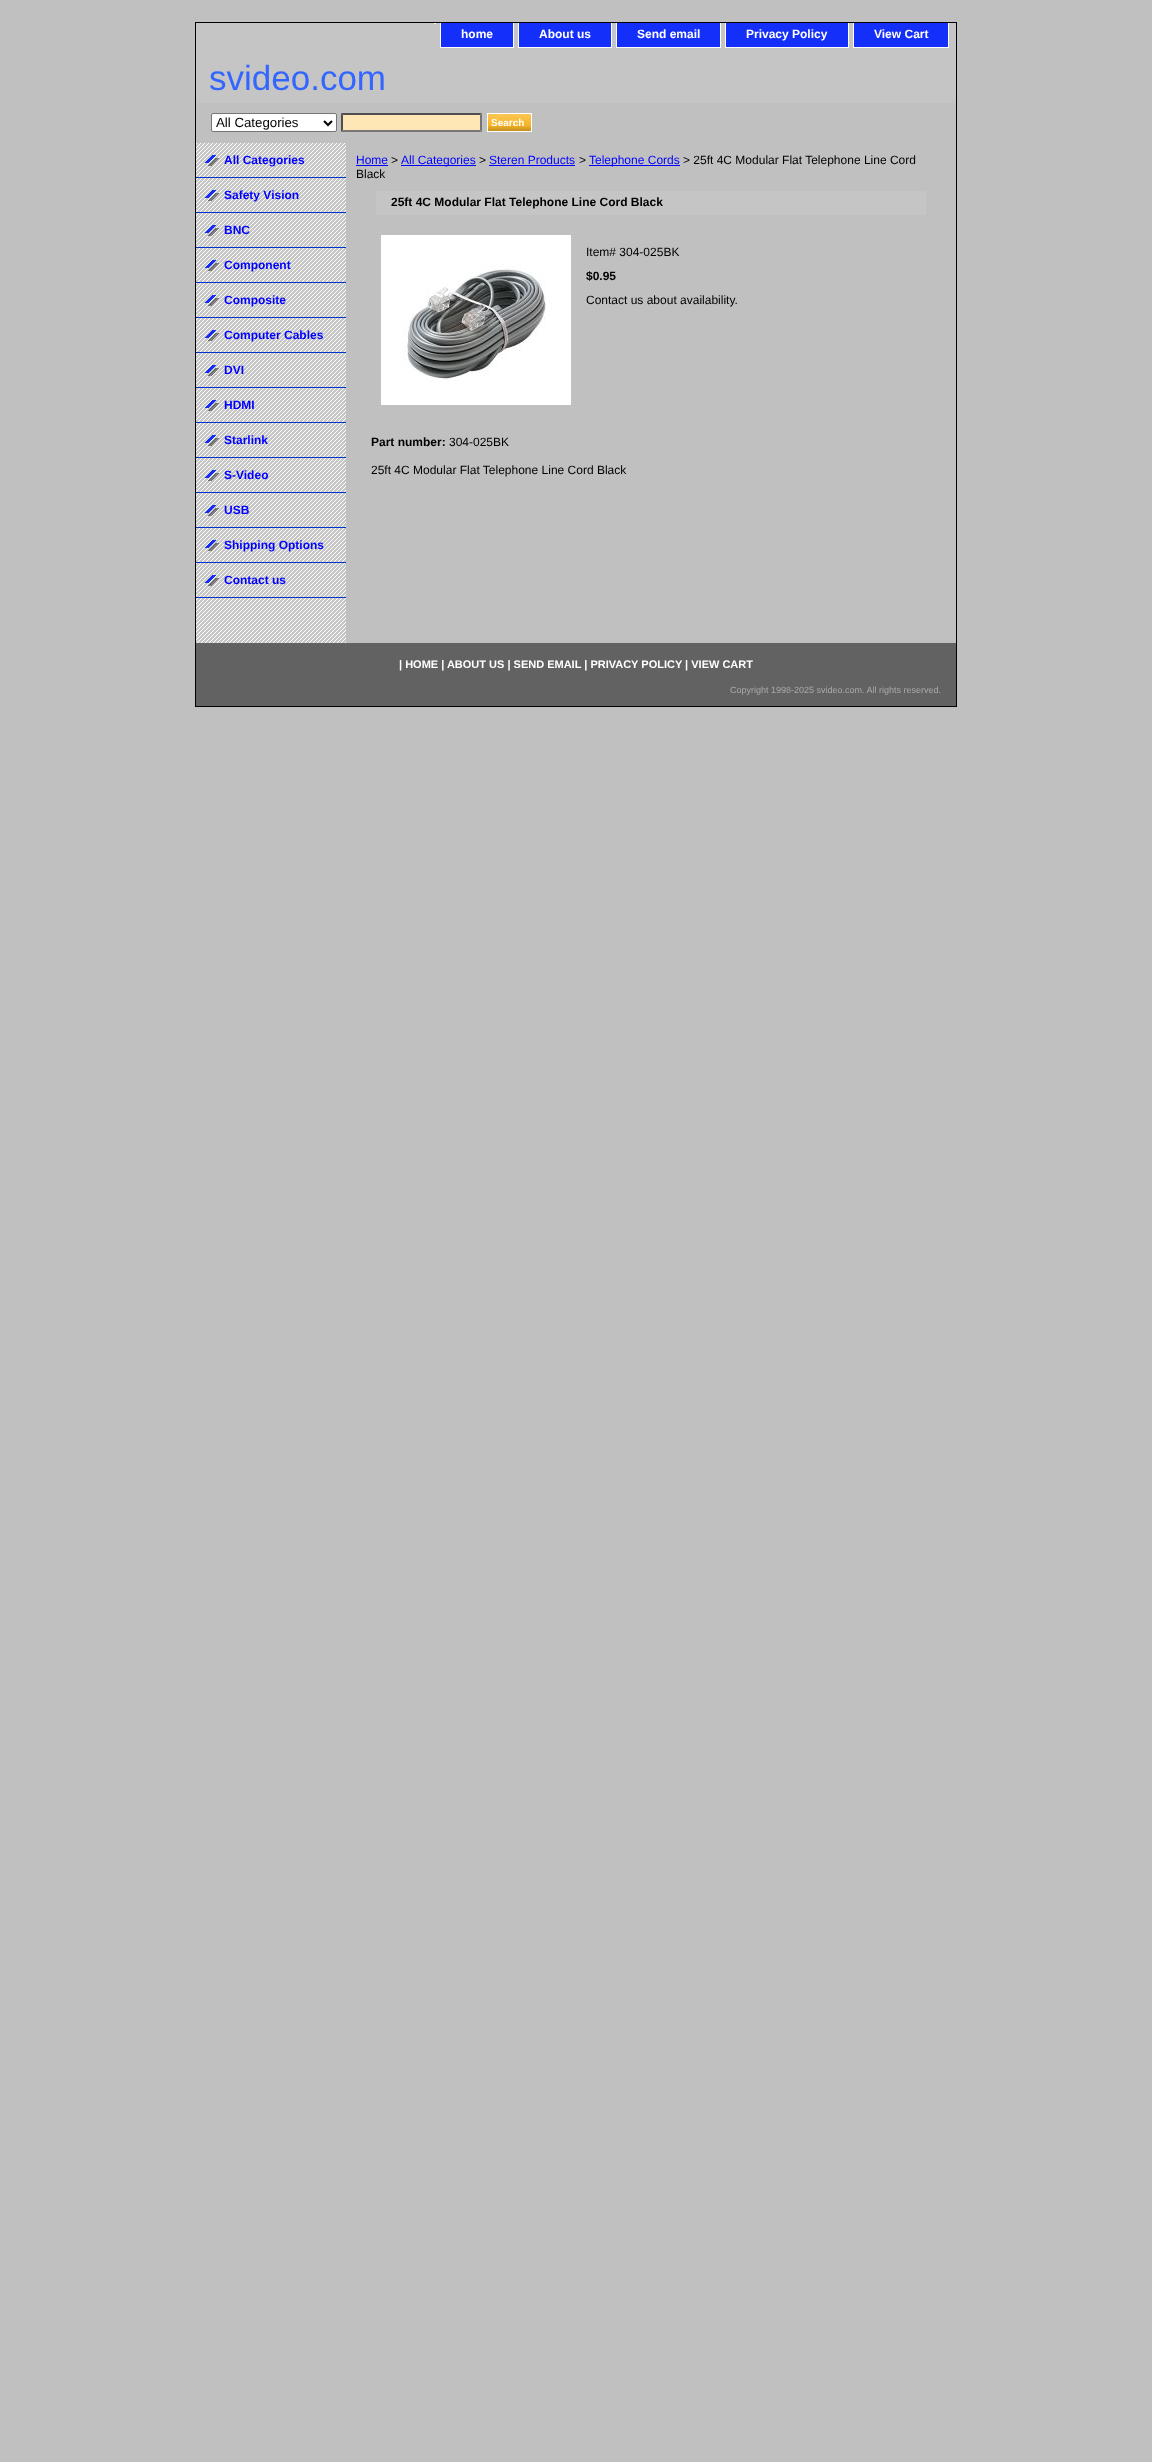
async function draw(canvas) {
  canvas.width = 1152
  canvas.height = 2462
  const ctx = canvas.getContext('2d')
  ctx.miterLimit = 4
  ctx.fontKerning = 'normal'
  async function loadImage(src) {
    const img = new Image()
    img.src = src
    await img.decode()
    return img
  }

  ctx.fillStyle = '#c0c0c0'
  ctx.fillRect(0, 0, 1152, 2462)
  ctx.drawImage(await loadImage('image0.png'), 196, 143, 150, 500)
  ctx.strokeStyle = '#000'
  ctx.strokeRect(195.5, 22.5, 761, 684)
  ctx.fillStyle = '#c5c5c5'
  ctx.fillRect(196, 23, 760, 80)
  ctx.fillStyle = '#fff'
  ctx.fillRect(434, 23, 2, 1)
  ctx.fillRect(513, 23, 1, 25)
  ctx.fillRect(440, 47, 74, 1)
  ctx.fillRect(440, 23, 1, 25)
  ctx.fillStyle = '#142ffa'
  ctx.fillRect(441, 23, 72, 24)
  ctx.font = 'bold 12px Liberation Sans'
  ctx.fillStyle = '#fff'
  ctx.fillText('home', 461, 38)
  ctx.fillRect(611, 23, 1, 25)
  ctx.fillRect(518, 47, 94, 1)
  ctx.fillRect(518, 23, 1, 25)
  ctx.fillStyle = '#142ffa'
  ctx.fillRect(519, 23, 92, 24)
  ctx.fillStyle = '#fff'
  ctx.fillText('About us', 539, 38)
  ctx.fillRect(720, 23, 1, 25)
  ctx.fillRect(616, 47, 105, 1)
  ctx.fillRect(616, 23, 1, 25)
  ctx.fillStyle = '#142ffa'
  ctx.fillRect(617, 23, 103, 24)
  ctx.fillStyle = '#fff'
  ctx.fillText('Send email', 637, 38)
  ctx.fillRect(848, 23, 1, 25)
  ctx.fillRect(725, 47, 124, 1)
  ctx.fillRect(725, 23, 1, 25)
  ctx.fillStyle = '#142ffa'
  ctx.fillRect(726, 23, 122, 24)
  ctx.fillStyle = '#fff'
  ctx.fillText('Privacy Policy', 746, 38)
  ctx.fillRect(948, 23, 1, 25)
  ctx.fillRect(853, 47, 96, 1)
  ctx.fillRect(853, 23, 1, 25)
  ctx.fillStyle = '#142ffa'
  ctx.fillRect(854, 23, 94, 24)
  ctx.fillStyle = '#fff'
  ctx.fillText('View Cart', 874, 38)
  ctx.font = '35px Liberation Sans'
  ctx.fillStyle = '#36f'
  ctx.fillText('svideo.com', 209, 90)
  ctx.fillStyle = '#fff'
  ctx.beginPath()
  ctx.roundRect(211.5, 113.5, 125, 18, 1.5)
  ctx.fill()
  ctx.strokeStyle = '#767676'
  ctx.stroke()
  ctx.beginPath()
  ctx.moveTo(324, 121)
  ctx.lineTo(328, 125)
  ctx.lineTo(332, 121)
  ctx.strokeStyle = '#000'
  ctx.lineWidth = 2
  ctx.stroke()
  ctx.font = '13.25px Liberation Sans'
  ctx.fillStyle = '#000'
  ctx.fillText('All Categories', 216, 127)
  ctx.fillStyle = '#ffe7b5'
  ctx.fillRect(341, 113, 141, 19)
  ctx.fillStyle = '#4f4f4f'
  ctx.beginPath()
  ctx.moveTo(341, 113)
  ctx.lineTo(482, 113)
  ctx.lineTo(480, 115)
  ctx.lineTo(343, 115)
  ctx.closePath()
  ctx.fill()
  ctx.fillStyle = '#767676'
  ctx.beginPath()
  ctx.moveTo(482, 113)
  ctx.lineTo(482, 132)
  ctx.lineTo(480, 130)
  ctx.lineTo(480, 115)
  ctx.closePath()
  ctx.fill()
  ctx.beginPath()
  ctx.moveTo(482, 132)
  ctx.lineTo(341, 132)
  ctx.lineTo(343, 130)
  ctx.lineTo(480, 130)
  ctx.closePath()
  ctx.fill()
  ctx.fillStyle = '#4f4f4f'
  ctx.beginPath()
  ctx.moveTo(341, 132)
  ctx.lineTo(341, 113)
  ctx.lineTo(343, 115)
  ctx.lineTo(343, 130)
  ctx.closePath()
  ctx.fill()
  ctx.drawImage(await loadImage('image1.png'), 488, 114, 43, 17)
  ctx.strokeStyle = '#fff'
  ctx.lineWidth = 1
  ctx.strokeRect(487.5, 113.5, 44, 18)
  ctx.font = 'bold 10px Liberation Sans'
  ctx.fillStyle = '#fff'
  ctx.fillText('Search', 491, 126)
  ctx.drawImage(await loadImage('image2.png'), 205, 155, 14, 11)
  ctx.fillStyle = '#03c'
  ctx.fillRect(196, 177, 150, 1)
  ctx.font = 'bold 12px Liberation Sans'
  ctx.fillStyle = '#00f'
  ctx.fillText('All Categories', 224, 164)
  ctx.drawImage(await loadImage('image3.png'), 205, 190, 14, 11)
  ctx.fillStyle = '#03c'
  ctx.fillRect(196, 212, 150, 1)
  ctx.fillStyle = '#00f'
  ctx.fillText('Safety Vision', 224, 199)
  ctx.drawImage(await loadImage('image4.png'), 205, 225, 14, 11)
  ctx.fillStyle = '#03c'
  ctx.fillRect(196, 247, 150, 1)
  ctx.fillStyle = '#00f'
  ctx.fillText('BNC', 224, 234)
  ctx.drawImage(await loadImage('image5.png'), 205, 260, 14, 11)
  ctx.fillStyle = '#03c'
  ctx.fillRect(196, 282, 150, 1)
  ctx.fillStyle = '#00f'
  ctx.fillText('Component', 224, 269)
  ctx.drawImage(await loadImage('image2.png'), 205, 295, 14, 11)
  ctx.fillStyle = '#03c'
  ctx.fillRect(196, 317, 150, 1)
  ctx.fillStyle = '#00f'
  ctx.fillText('Composite', 224, 304)
  ctx.drawImage(await loadImage('image3.png'), 205, 330, 14, 11)
  ctx.fillStyle = '#03c'
  ctx.fillRect(196, 352, 150, 1)
  ctx.fillStyle = '#00f'
  ctx.fillText('Computer Cables', 224, 339)
  ctx.drawImage(await loadImage('image4.png'), 205, 365, 14, 11)
  ctx.fillStyle = '#03c'
  ctx.fillRect(196, 387, 150, 1)
  ctx.fillStyle = '#00f'
  ctx.fillText('DVI', 224, 374)
  ctx.drawImage(await loadImage('image5.png'), 205, 400, 14, 11)
  ctx.fillStyle = '#03c'
  ctx.fillRect(196, 422, 150, 1)
  ctx.fillStyle = '#00f'
  ctx.fillText('HDMI', 224, 409)
  ctx.drawImage(await loadImage('image2.png'), 205, 435, 14, 11)
  ctx.fillStyle = '#03c'
  ctx.fillRect(196, 457, 150, 1)
  ctx.fillStyle = '#00f'
  ctx.fillText('Starlink', 224, 444)
  ctx.drawImage(await loadImage('image3.png'), 205, 470, 14, 11)
  ctx.fillStyle = '#03c'
  ctx.fillRect(196, 492, 150, 1)
  ctx.fillStyle = '#00f'
  ctx.fillText('S-Video', 224, 479)
  ctx.drawImage(await loadImage('image4.png'), 205, 505, 14, 11)
  ctx.fillStyle = '#03c'
  ctx.fillRect(196, 527, 150, 1)
  ctx.fillStyle = '#00f'
  ctx.fillText('USB', 224, 514)
  ctx.drawImage(await loadImage('image5.png'), 205, 540, 14, 11)
  ctx.fillStyle = '#03c'
  ctx.fillRect(196, 562, 150, 1)
  ctx.fillStyle = '#00f'
  ctx.fillText('Shipping Options', 224, 549)
  ctx.drawImage(await loadImage('image2.png'), 205, 575, 14, 11)
  ctx.fillStyle = '#03c'
  ctx.fillRect(196, 597, 150, 1)
  ctx.fillStyle = '#00f'
  ctx.fillText('Contact us', 224, 584)
  ctx.font = '12px Liberation Sans'
  ctx.fillText('Home', 356, 164)
  ctx.fillRect(356, 165, 32, 1)
  ctx.fillStyle = '#000'
  ctx.fillText('>', 391, 164)
  ctx.fillStyle = '#00f'
  ctx.fillRect(401, 165, 75, 1)
  ctx.fillText('All Categories', 401, 164)
  ctx.fillStyle = '#000'
  ctx.fillText('>', 479, 164)
  ctx.fillStyle = '#00f'
  ctx.fillText('Steren Products', 489, 164)
  ctx.fillRect(489, 165, 86, 1)
  ctx.fillStyle = '#000'
  ctx.fillText('>', 579, 164)
  ctx.fillStyle = '#00f'
  ctx.fillRect(589, 165, 91, 1)
  ctx.fillText('Telephone Cords', 589, 164)
  ctx.fillStyle = '#000'
  ctx.fillText('> 25ft 4C Modular Flat Telephone Line Cord', 683, 164)
  ctx.fillText('Black', 356, 178)
  ctx.fillStyle = '#c5c5c5'
  ctx.fillRect(376, 191, 550, 24)
  ctx.font = 'bold 12px Liberation Sans'
  ctx.fillStyle = '#000'
  ctx.fillText('25ft 4C Modular Flat Telephone Line Cord Black', 391, 206)
  ctx.fillStyle = '#fff'
  ctx.fillRect(381, 235, 190, 170)
  ctx.drawImage(await loadImage('image6.png'), 402, 264, 144, 118)
  ctx.font = '12px Liberation Sans'
  ctx.fillStyle = '#000'
  ctx.fillText('Item# 304-025BK', 586, 256)
  ctx.font = 'bold 12px Liberation Sans'
  ctx.fillText('$0.95', 586, 280)
  ctx.font = '12px Liberation Sans'
  ctx.fillText('Contact us about availability.', 586, 304)
  ctx.font = 'bold 12px Liberation Sans'
  ctx.fillText('Part number:', 371, 446)
  ctx.font = '12px Liberation Sans'
  ctx.fillText('304-025BK', 449, 446)
  ctx.fillText('25ft 4C Modular Flat Telephone Line Cord Black', 371, 474)
  ctx.fillStyle = '#626262'
  ctx.fillRect(196, 643, 760, 63)
  ctx.font = 'bold 11px Liberation Sans'
  ctx.fillStyle = '#fff'
  ctx.fillText('| HOME | ABOUT US | SEND EMAIL | PRIVACY POLICY | VIEW CART', 399, 668)
  ctx.font = '9px Liberation Sans'
  ctx.fillStyle = '#aaa'
  ctx.fillText('Copyright 1998-2025 svideo.com. All rights reserved.', 730, 693)
}

draw(document.querySelector('canvas'))
